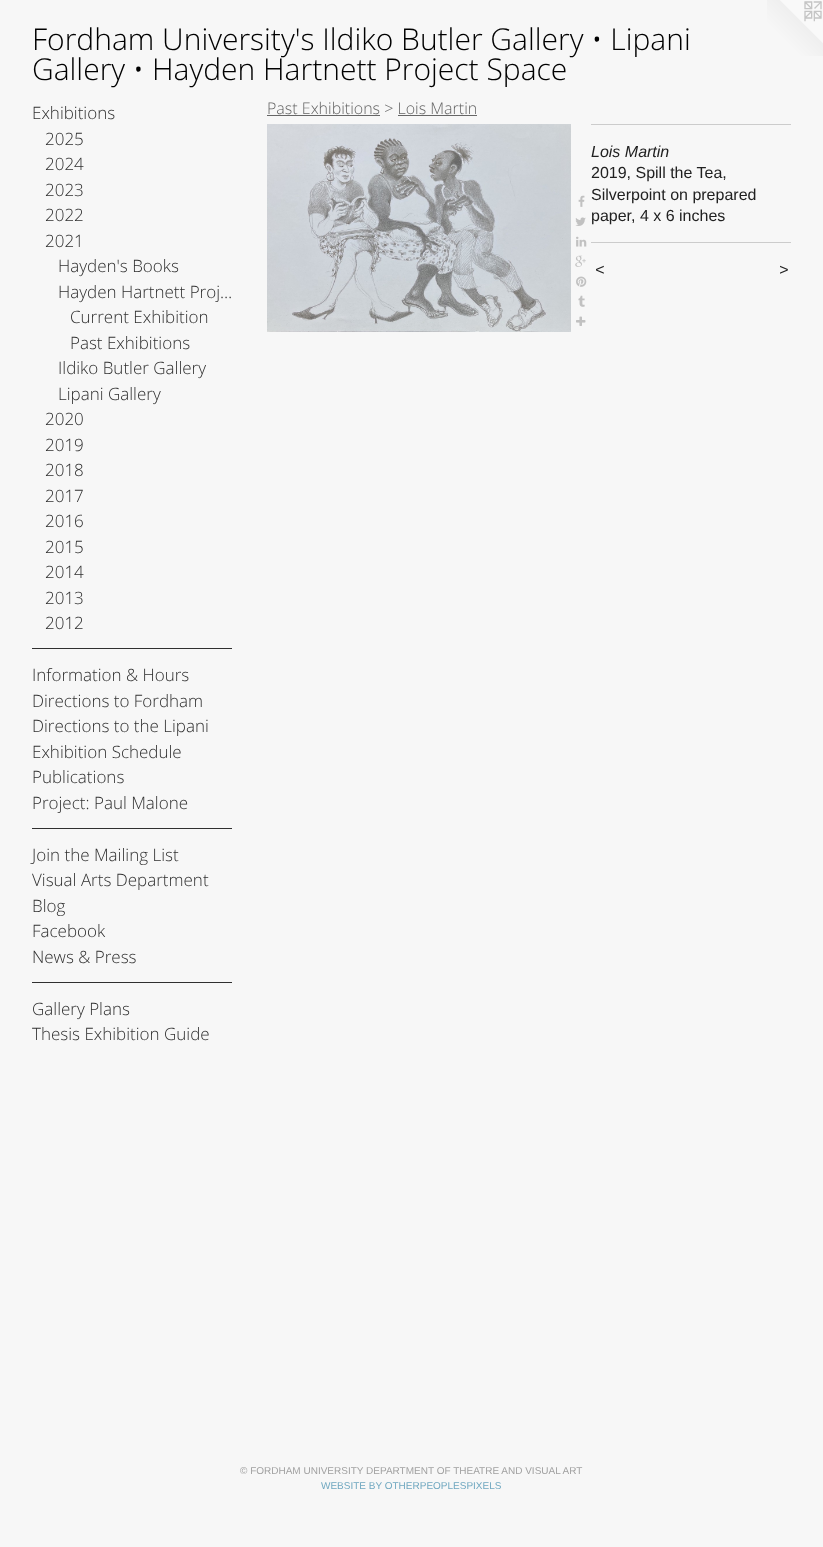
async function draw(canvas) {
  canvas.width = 823
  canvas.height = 1547
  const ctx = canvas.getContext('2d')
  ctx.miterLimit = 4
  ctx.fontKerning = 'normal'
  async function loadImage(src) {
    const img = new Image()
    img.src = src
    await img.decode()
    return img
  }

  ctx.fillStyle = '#f7f7f7'
  ctx.fillRect(0, 0, 823, 1547)
  ctx.font = '300 30px Open Sans'
  ctx.fillStyle = '#000'
  ctx.fillText('Fordham University\'s Ildiko Butler Gallery • Lipani', 32, 50)
  ctx.fillText('Gallery • Hayden Hartnett Project Space', 32, 80)
  ctx.drawImage(await loadImage('image0.png'), 767, 0, 56, 56)
  ctx.font = '300 17px Open Sans'
  ctx.fillStyle = '#303030'
  ctx.fillText('Exhibitions', 32, 119)
  ctx.fillText('2025', 45, 145)
  ctx.fillText('2024', 45, 170)
  ctx.fillText('2023', 45, 196)
  ctx.fillText('2022', 45, 221)
  ctx.fillText('2021', 45, 247)
  ctx.fillText('Hayden\'s Books', 58, 272)
  ctx.fillText('Hayden Hartnett Proj…', 58, 298)
  ctx.fillText('Current Exhibition', 70, 323)
  ctx.fillText('Past Exhibitions', 70, 349)
  ctx.fillText('Ildiko Butler Gallery', 58, 374)
  ctx.fillText('Lipani Gallery', 58, 400)
  ctx.fillText('2020', 45, 425)
  ctx.fillText('2019', 45, 451)
  ctx.fillText('2018', 45, 476)
  ctx.fillText('2017', 45, 502)
  ctx.fillText('2016', 45, 527)
  ctx.fillText('2015', 45, 553)
  ctx.fillText('2014', 45, 578)
  ctx.fillText('2013', 45, 604)
  ctx.fillText('2012', 45, 629)
  ctx.fillRect(32, 648, 200, 1)
  ctx.fillText('Information & Hours', 32, 681)
  ctx.fillText('Directions to Fordham', 32, 707)
  ctx.fillText('Directions to the Lipani', 32, 732)
  ctx.fillText('Exhibition Schedule', 32, 758)
  ctx.fillText('Publications', 32, 783)
  ctx.fillText('Project: Paul Malone', 32, 809)
  ctx.fillRect(32, 828, 200, 1)
  ctx.fillText('Join the Mailing List', 32, 861)
  ctx.fillText('Visual Arts Department', 32, 886)
  ctx.fillText('Blog', 32, 912)
  ctx.fillText('Facebook', 32, 937)
  ctx.fillText('News & Press', 32, 963)
  ctx.fillRect(32, 982, 200, 1)
  ctx.fillText('Gallery Plans', 32, 1015)
  ctx.fillText('Thesis Exhibition Guide', 32, 1040)
  ctx.font = '300 16px Open Sans'
  ctx.fillStyle = '#666'
  ctx.fillText('Past Exhibitions > Lois Martin', 267, 114)
  ctx.fillRect(267, 115, 113, 1)
  ctx.fillRect(398, 115, 79, 1)
  ctx.drawImage(await loadImage('image1.png'), 267, 124, 304, 208)
  ctx.drawImage(await loadImage('image2.png'), 578, 195, 7, 12)
  ctx.drawImage(await loadImage('image3.png'), 575, 217, 11, 9)
  ctx.drawImage(await loadImage('image4.png'), 576, 236, 11, 11)
  ctx.drawImage(await loadImage('image5.png'), 575, 255, 11, 12)
  ctx.drawImage(await loadImage('image6.png'), 576, 276, 11, 11)
  ctx.drawImage(await loadImage('image7.png'), 578, 295, 7, 12)
  ctx.drawImage(await loadImage('image8.png'), 576, 316, 10, 10)
  ctx.fillStyle = '#ccc'
  ctx.fillRect(591, 124, 200, 1)
  ctx.font = 'italic 16px Liberation Sans'
  ctx.fillStyle = '#212121'
  ctx.fillText('Lois Martin', 591, 157)
  ctx.font = '16px Liberation Sans'
  ctx.fillText('2019, Spill the Tea,', 591, 178)
  ctx.fillText('Silverpoint on prepared', 591, 200)
  ctx.fillText('paper, 4 x 6 inches', 591, 221)
  ctx.fillStyle = '#ccc'
  ctx.fillRect(591, 242, 200, 1)
  ctx.letterSpacing = '1px'
  ctx.font = 'italic 16px Liberation Sans'
  ctx.fillStyle = '#212121'
  ctx.fillText('<', 595, 275)
  ctx.fillText('>', 779, 275)
  ctx.letterSpacing = '0px'
  ctx.font = '10px Liberation Sans'
  ctx.fillStyle = '#a1a1a1'
  ctx.fillText('© FORDHAM UNIVERSITY DEPARTMENT OF THEATRE AND VISUAL ART', 240, 1474)
  ctx.fillStyle = '#70a8c0'
  ctx.fillText('WEBSITE BY OTHERPEOPLESPIXELS', 321, 1489)
}

draw(document.querySelector('canvas'))
